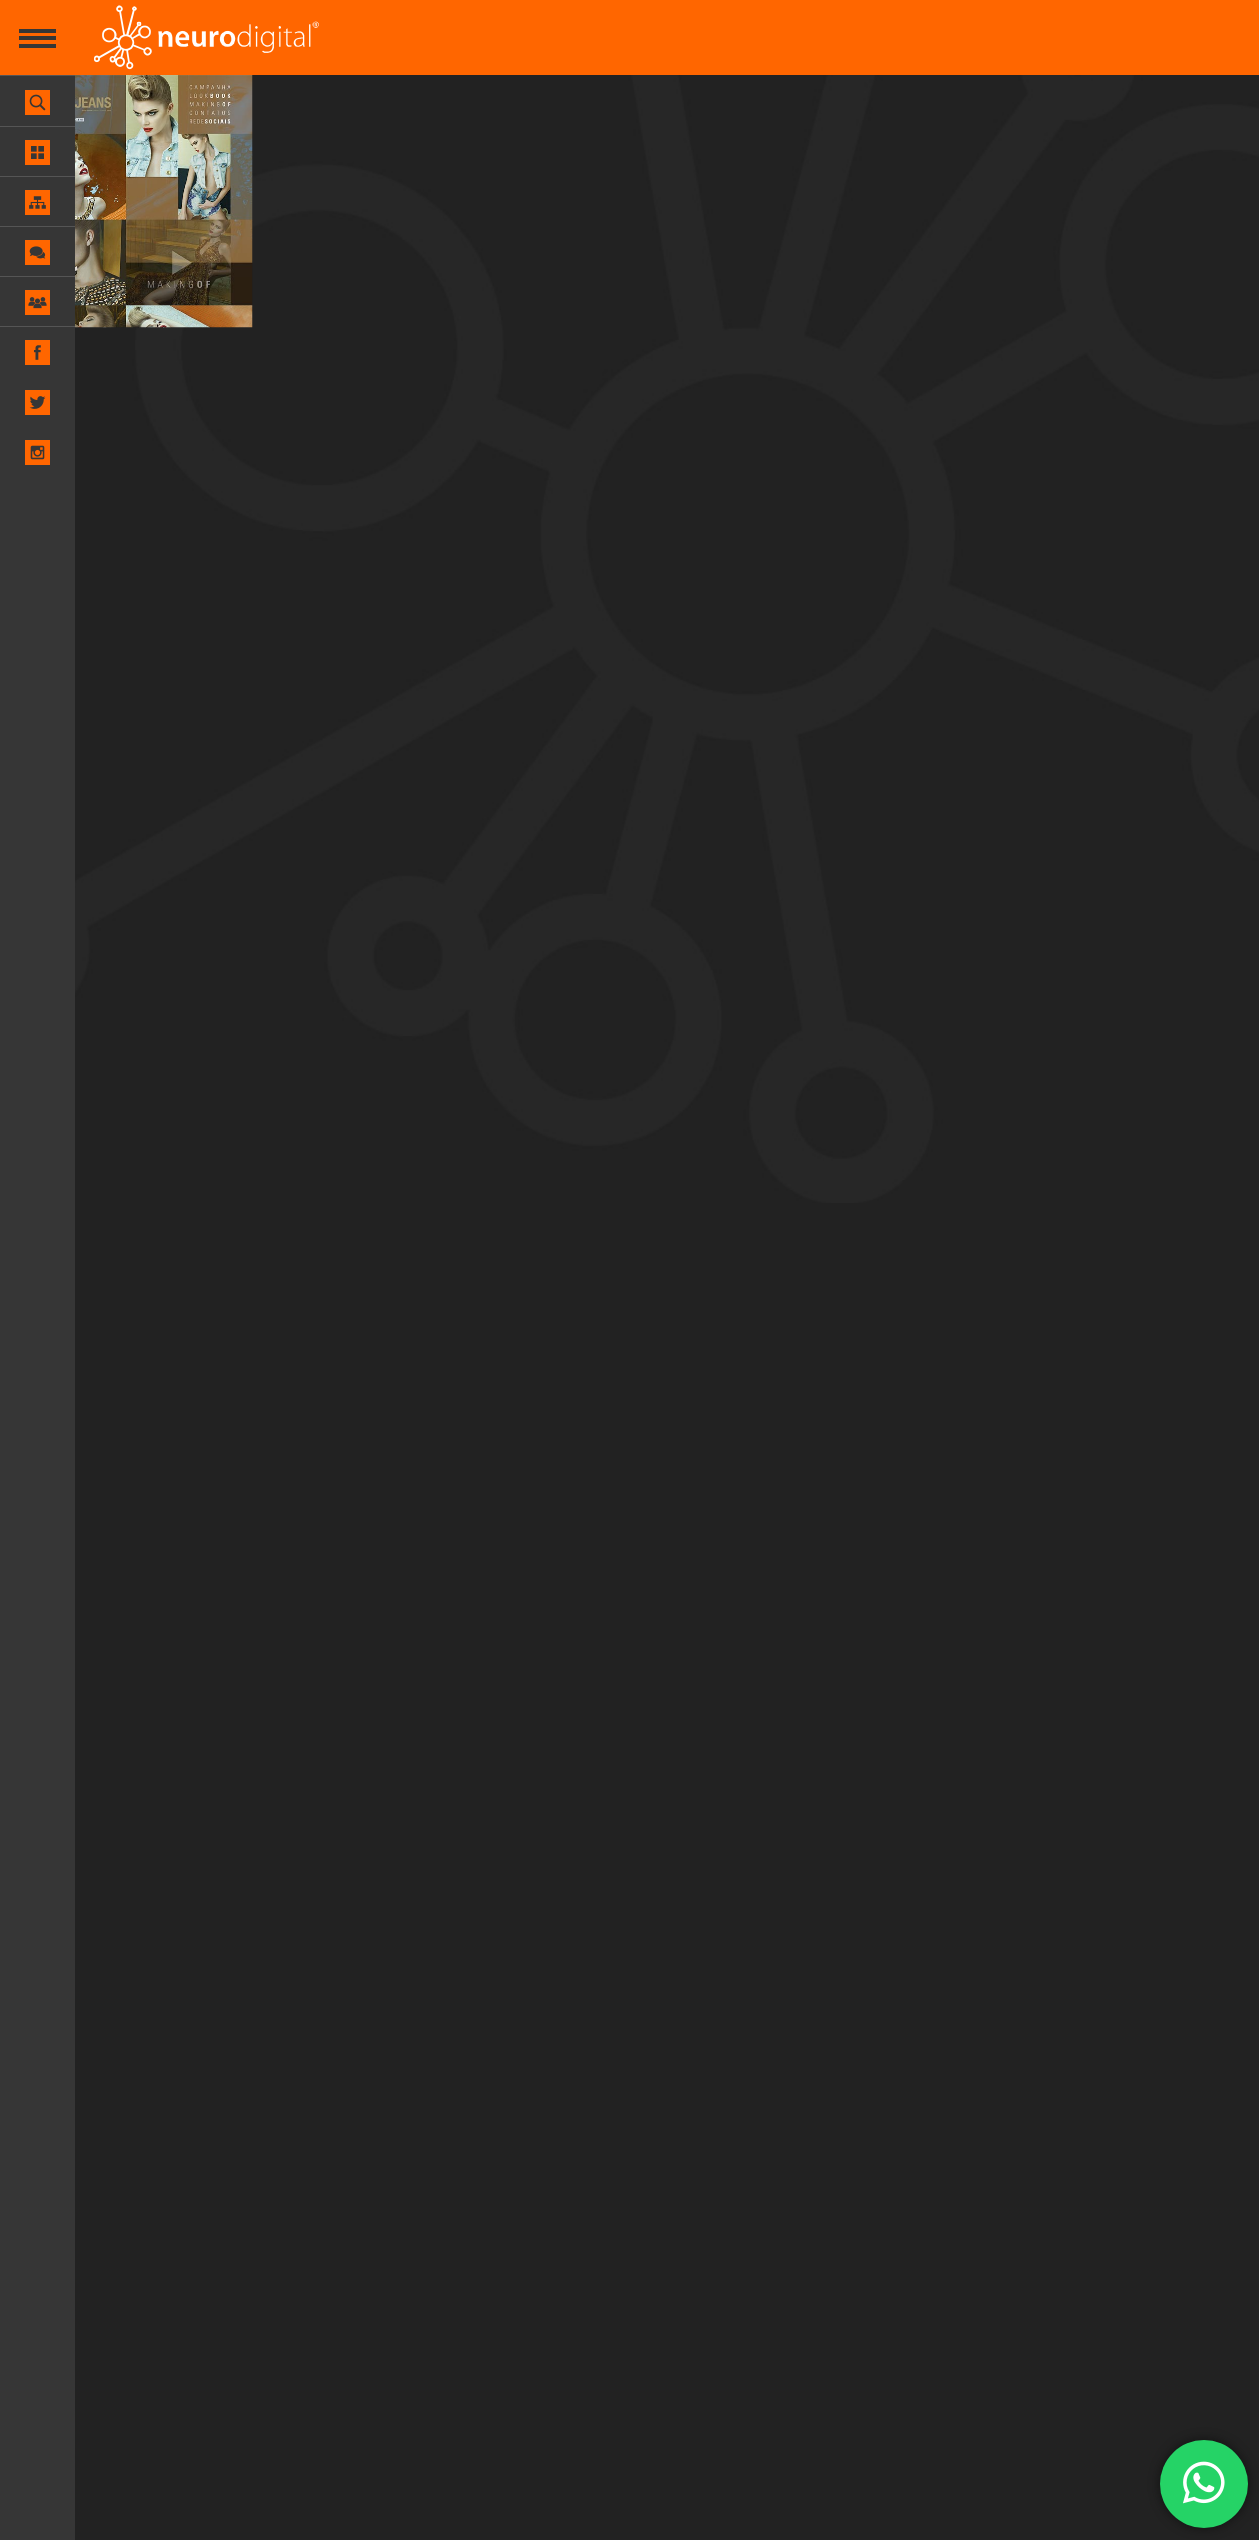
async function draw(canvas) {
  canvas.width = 1259
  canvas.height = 2540
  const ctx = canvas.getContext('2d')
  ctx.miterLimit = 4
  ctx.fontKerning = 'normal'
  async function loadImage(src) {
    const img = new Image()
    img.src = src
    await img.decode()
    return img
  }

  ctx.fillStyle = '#222'
  ctx.fillRect(0, 0, 1259, 2540)
  ctx.drawImage(await loadImage('image0.png'), 75, 75, 1184, 1128)
  ctx.fillStyle = '#f60'
  ctx.fillRect(0, 0, 1259, 75)
  ctx.fillStyle = '#363636'
  ctx.fillRect(19, 29, 37, 4)
  ctx.fillRect(19, 36, 37, 4)
  ctx.fillRect(19, 44, 37, 4)
  ctx.fillRect(0, 76, 75, 2464)
  ctx.fillStyle = '#555'
  ctx.fillRect(0, 75, 75, 1)
  ctx.drawImage(await loadImage('image1.png'), 25, 90, 25, 25)
  ctx.fillRect(0, 126, 75, 1)
  ctx.drawImage(await loadImage('image2.png'), 25, 140, 25, 25)
  ctx.fillRect(0, 176, 75, 1)
  ctx.drawImage(await loadImage('image3.png'), 25, 190, 25, 25)
  ctx.fillRect(0, 226, 75, 1)
  ctx.drawImage(await loadImage('image4.png'), 25, 240, 25, 25)
  ctx.fillRect(0, 276, 75, 1)
  ctx.drawImage(await loadImage('image5.png'), 25, 290, 25, 25)
  ctx.fillRect(0, 326, 75, 1)
  ctx.drawImage(await loadImage('image6.png'), 25, 340, 25, 25)
  ctx.drawImage(await loadImage('image7.png'), 25, 390, 25, 25)
  ctx.drawImage(await loadImage('image8.png'), 25, 440, 25, 25)
  ctx.drawImage(await loadImage('image9.png'), 94, 5, 225, 65)
  ctx.drawImage(await loadImage('image10.png'), 75, 75, 178, 253)
  ctx.fillStyle = '#00000080'
  ctx.filter = 'blur(6px)'
  ctx.beginPath()
  ctx.roundRect(1160, 2440, 88, 88, 44)
  ctx.fill()
  ctx.filter = 'none'
  ctx.fillStyle = '#25d366'
  ctx.beginPath()
  ctx.arc(1204, 2484, 44, 0, 2 * Math.PI)
  ctx.fill()
  ctx.drawImage(await loadImage('image11.png'), 1183, 2461, 42, 43)
}

draw(document.querySelector('canvas'))
